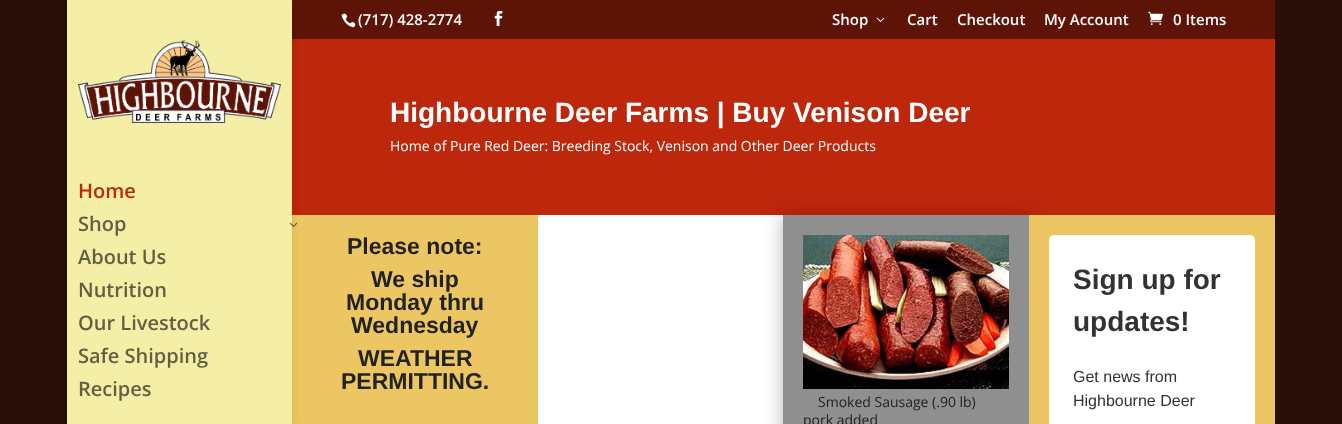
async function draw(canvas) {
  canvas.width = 1342
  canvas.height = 424
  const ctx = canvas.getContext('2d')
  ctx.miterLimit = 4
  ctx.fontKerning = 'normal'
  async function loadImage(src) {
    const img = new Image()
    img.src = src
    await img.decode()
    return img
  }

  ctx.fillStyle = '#270f08'
  ctx.fillRect(0, 0, 1342, 424)
  ctx.fillStyle = '#5d1306'
  ctx.fillRect(292, 0, 983, 39)
  ctx.drawImage(await loadImage('image0.png'), 341, 13, 15, 15)
  ctx.font = '600 15px Open Sans'
  ctx.fillStyle = '#fff'
  ctx.fillText('(717) 428-2774', 358, 25)
  ctx.drawImage(await loadImage('image1.png'), 494, 10, 9, 16)
  ctx.fillText('Shop', 832, 25)
  ctx.drawImage(await loadImage('image2.png'), 876, 17, 9, 5)
  ctx.fillText('Cart', 907, 25)
  ctx.fillText('Checkout', 957, 25)
  ctx.fillText('My Account', 1044, 25)
  ctx.drawImage(await loadImage('image3.png'), 1148, 11, 15, 14)
  ctx.fillText('0 Items', 1173, 25)
  ctx.fillStyle = '#bd270c'
  ctx.fillRect(292, 39, 983, 176)
  ctx.fillStyle = '#ecc662'
  ctx.fillRect(292, 215, 246, 209)
  ctx.fillStyle = '#0000001a'
  ctx.filter = 'blur(3.5px)'
  ctx.beginPath()
  ctx.rect(67, 0, 225, 424)
  ctx.fill()
  ctx.filter = 'none'
  ctx.fillStyle = '#f5eea7'
  ctx.fillRect(67, 0, 225, 424)
  ctx.drawImage(await loadImage('image4.png'), 78, 40, 203, 83)
  ctx.font = '600 20px Open Sans'
  ctx.fillStyle = '#bd270c'
  ctx.fillText('Home', 78, 198)
  ctx.fillStyle = '#625f43'
  ctx.fillText('Shop', 78, 231)
  ctx.drawImage(await loadImage('image5.png'), 289, 222, 9, 5)
  ctx.fillText('About Us', 78, 264)
  ctx.fillText('Nutrition', 78, 297)
  ctx.fillText('Our Livestock', 78, 330)
  ctx.fillText('Safe Shipping', 78, 363)
  ctx.fillText('Recipes', 78, 396)
  ctx.font = 'bold 28px Liberation Sans'
  ctx.fillStyle = '#fff'
  ctx.fillText('Highbourne Deer Farms | Buy Venison Deer', 390, 122)
  ctx.font = '14px Open Sans'
  ctx.fillText('Home of Pure Red Deer: Breeding Stock, Venison and Other Deer Products', 390, 151)
  ctx.fillRect(538, 215, 245, 209)
  ctx.font = 'bold 23px Liberation Sans'
  ctx.fillStyle = '#222'
  ctx.fillText('Please note:', 347, 254)
  ctx.fillText('We ship', 371, 287)
  ctx.fillText('Monday thru', 346, 310)
  ctx.fillText('Wednesday', 351, 333)
  ctx.fillText('WEATHER', 358, 366)
  ctx.fillText('PERMITTING.', 341, 389)
  ctx.fillStyle = '#0000004d'
  ctx.filter = 'blur(9px)'
  ctx.beginPath()
  ctx.rect(783, 217, 246, 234)
  ctx.fill()
  ctx.filter = 'none'
  ctx.fillStyle = '#8f8f8f'
  ctx.fillRect(783, 215, 246, 209)
  ctx.drawImage(await loadImage('image6.png'), 803, 235, 206, 154)
  ctx.font = '14px Open Sans'
  ctx.fillStyle = '#222'
  ctx.fillText('Smoked Sausage (.90 lb)', 818, 407)
  ctx.fillText('pork added', 803, 425)
  ctx.fillStyle = '#ecc662'
  ctx.fillRect(1029, 215, 246, 209)
  ctx.fillStyle = '#fff'
  ctx.beginPath()
  ctx.roundRect(1049, 235, 206, 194, 5)
  ctx.fill()
  ctx.font = 'bold 28px Liberation Sans'
  ctx.fillStyle = '#323232'
  ctx.fillText('Sign up for', 1073, 289)
  ctx.fillText('updates!', 1073, 331)
  ctx.font = '16px Liberation Sans'
  ctx.fillText('Get news from', 1073, 382)
  ctx.fillText('Highbourne Deer', 1073, 406)
}

draw(document.querySelector('canvas'))
